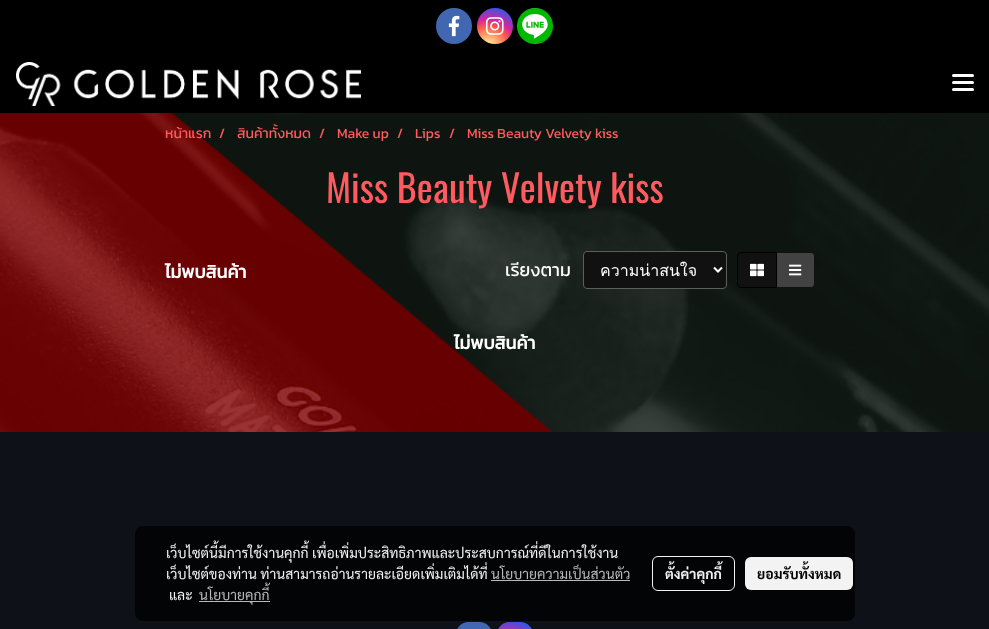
async function draw(canvas) {
  canvas.width = 989
  canvas.height = 629
  const ctx = canvas.getContext('2d')
  ctx.miterLimit = 4
  ctx.fontKerning = 'normal'
  async function loadImage(src) {
    const img = new Image()
    img.src = src
    await img.decode()
    return img
  }
  let gradient

  ctx.fillStyle = '#fff'
  ctx.fillRect(0, 0, 989, 629)
  ctx.drawImage(await loadImage('image0.png'), 0, 113, 989, 319)
  ctx.fillStyle = '#000'
  ctx.fillRect(0, 0, 989, 113)
  ctx.fillStyle = '#4267b2'
  ctx.beginPath()
  ctx.arc(454, 26, 18, 0, 2 * Math.PI)
  ctx.fill()
  ctx.drawImage(await loadImage('image1.png'), 448, 15, 12, 22)
  gradient = ctx.createRadialGradient(488, 47, 0, 488, 47, 46)
  gradient.addColorStop(0, '#fdf497')
  gradient.addColorStop(0.05, '#fdf497')
  gradient.addColorStop(0.45, '#fd5949')
  gradient.addColorStop(0.6, '#d6249f')
  gradient.addColorStop(0.9, '#285aeb')
  ctx.fillStyle = gradient
  ctx.beginPath()
  ctx.arc(495, 26, 18, 0, 2 * Math.PI)
  ctx.fill()
  ctx.drawImage(await loadImage('image2.png'), 485, 17, 19, 18)
  ctx.fillStyle = '#00b800'
  ctx.beginPath()
  ctx.arc(535, 26, 18, 0, 2 * Math.PI)
  ctx.fill()
  ctx.drawImage(await loadImage('image3.png'), 517, 8, 36, 36)
  ctx.drawImage(await loadImage('image4.png'), 16, 62, 345, 44)
  ctx.fillStyle = '#fff'
  ctx.beginPath()
  ctx.roundRect(952, 81, 22, 3, 1.5)
  ctx.fill()
  ctx.beginPath()
  ctx.roundRect(952, 74, 22, 3, 1.5)
  ctx.fill()
  ctx.beginPath()
  ctx.roundRect(952, 88, 22, 3, 1.5)
  ctx.fill()
  ctx.font = '14px Kanit'
  ctx.fillStyle = '#ff5a60'
  ctx.fillText('หน้าแรก', 165, 138)
  ctx.fillText('/', 219, 138)
  ctx.fillText('สินค้าทั้งหมด', 237, 138)
  ctx.fillText('/', 319, 138)
  ctx.fillText('Make up', 337, 138)
  ctx.fillText('/', 397, 138)
  ctx.fillText('Lips', 415, 138)
  ctx.fillText('/', 449, 138)
  ctx.fillText('Miss Beauty Velvety kiss', 467, 138)
  ctx.font = '38px Oswald'
  ctx.fillText('Miss Beauty Velvety kiss', 326, 203)
  ctx.font = 'bold 18px Kanit'
  ctx.fillStyle = '#fff'
  ctx.fillText('ไม่พบสินค้า', 165, 278)
  ctx.font = '18px Kanit'
  ctx.fillText('เรียงตาม', 505, 276)
  ctx.fillStyle = '#111'
  ctx.beginPath()
  ctx.roundRect(583.5, 251.5, 143, 37, 3.5)
  ctx.fill()
  ctx.strokeStyle = '#5e5e5e'
  ctx.stroke()
  ctx.beginPath()
  ctx.moveTo(714, 267.5)
  ctx.lineTo(718, 271.5)
  ctx.lineTo(722, 267.5)
  ctx.strokeStyle = '#fff'
  ctx.lineWidth = 2
  ctx.stroke()
  ctx.font = '16px Loma'
  ctx.fillStyle = '#fff'
  ctx.fillText('ความน่าสนใจ', 600, 276)
  ctx.fillStyle = '#424242'
  ctx.beginPath()
  ctx.roundRect(776.5, 252.5, 38, 35, [0, 3.5, 3.5, 0])
  ctx.fill()
  ctx.strokeStyle = '#111'
  ctx.lineWidth = 1
  ctx.stroke()
  ctx.fillStyle = '#111'
  ctx.beginPath()
  ctx.roundRect(737.5, 252.5, 39, 35, [3.5, 0, 0, 3.5])
  ctx.fill()
  ctx.strokeStyle = '#000'
  ctx.stroke()
  ctx.drawImage(await loadImage('image5.png'), 750, 263, 14, 14)
  ctx.drawImage(await loadImage('image6.png'), 789, 264, 13, 12)
  ctx.font = 'bold 18px Kanit'
  ctx.fillStyle = '#fff'
  ctx.fillText('ไม่พบสินค้า', 454, 349)
  ctx.fillStyle = '#0e1118'
  ctx.fillRect(0, 432, 989, 197)
  ctx.fillStyle = '#4267b2'
  ctx.beginPath()
  ctx.roundRect(456, 622, 36, 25, 18)
  ctx.fill()
  gradient = ctx.createRadialGradient(508, 661, 0, 508, 661, 46)
  gradient.addColorStop(0, '#fdf497')
  gradient.addColorStop(0.05, '#fdf497')
  gradient.addColorStop(0.45, '#fd5949')
  gradient.addColorStop(0.6, '#d6249f')
  gradient.addColorStop(0.9, '#285aeb')
  ctx.fillStyle = gradient
  ctx.beginPath()
  ctx.roundRect(497, 622, 36, 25, 18)
  ctx.fill()
  ctx.fillStyle = '#000000c2'
  ctx.beginPath()
  ctx.roundRect(135, 526, 720, 95, 8)
  ctx.fill()
  ctx.font = '14px Sarabun'
  ctx.fillStyle = '#f2f2f3'
  ctx.fillText('เว็บไซต์นี้มีการใช้งานคุกกี้ เพื่อเพิ่มประสิทธิภาพและประสบการณ์ที่ดีในการใช้งาน', 166, 558)
  ctx.fillText('เว็บไซต์ของท่าน ท่านสามารถอ่านรายละเอียดเพิ่มเติมได้ที่', 166, 579)
  ctx.fillStyle = '#b9b9b9'
  ctx.fillText('นโยบายความเป็นส่วนตัว', 491, 579)
  ctx.fillStyle = '#b9b9ba'
  ctx.fillRect(491, 580, 139, 1)
  ctx.fillStyle = '#f2f2f3'
  ctx.fillText('และ', 169, 600)
  ctx.fillStyle = '#b9b9ba'
  ctx.fillRect(199, 601, 71, 1)
  ctx.fillStyle = '#b9b9b9'
  ctx.fillText('นโยบายคุกกี้', 199, 600)
  ctx.beginPath()
  ctx.roundRect(652.5, 556.5, 82, 34, 5.5)
  ctx.strokeStyle = '#f3f3f3'
  ctx.stroke()
  ctx.font = 'bold 14px Sarabun'
  ctx.fillStyle = '#f2f2f3'
  ctx.fillText('ตั้งค่าคุกกี้', 665, 579)
  ctx.fillStyle = '#f3f3f3'
  ctx.beginPath()
  ctx.roundRect(745, 557, 108, 33, 6)
  ctx.fill()
  ctx.fillStyle = '#010101'
  ctx.fillText('ยอมรับทั้งหมด', 757, 579)
}

draw(document.querySelector('canvas'))
